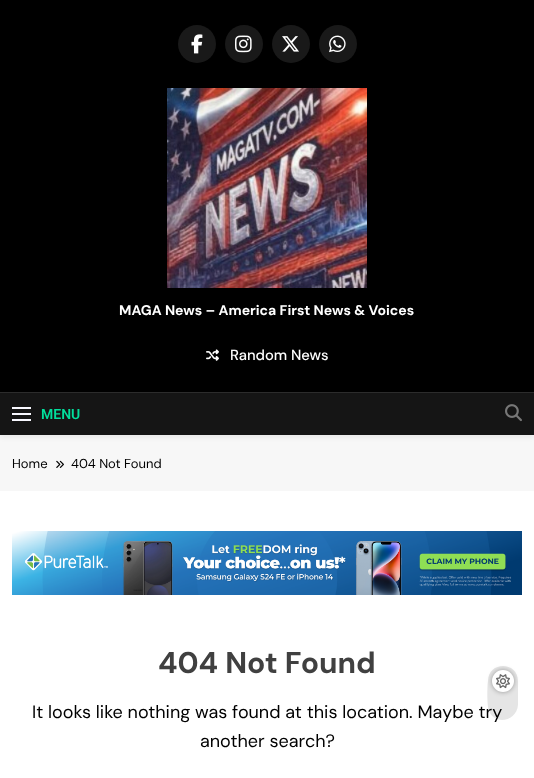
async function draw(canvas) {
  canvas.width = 534
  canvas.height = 778
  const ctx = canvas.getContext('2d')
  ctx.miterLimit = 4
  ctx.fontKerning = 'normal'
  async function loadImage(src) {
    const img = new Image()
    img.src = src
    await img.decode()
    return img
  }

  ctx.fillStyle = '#fff'
  ctx.fillRect(0, 0, 534, 778)
  ctx.fillStyle = '#f7f7f7'
  ctx.fillRect(0, 435, 534, 56)
  ctx.fillStyle = '#0000000d'
  ctx.filter = 'blur(2px)'
  ctx.beginPath()
  ctx.rect(0, 3, 534, 435)
  ctx.fill()
  ctx.filter = 'none'
  ctx.fillStyle = '#000'
  ctx.fillRect(0, 0, 534, 392)
  ctx.fillStyle = '#191919'
  ctx.beginPath()
  ctx.arc(197, 44, 19, 0, 2 * Math.PI)
  ctx.fill()
  ctx.drawImage(await loadImage('image0.png'), 191, 34, 12, 20)
  ctx.beginPath()
  ctx.arc(244, 44, 19, 0, 2 * Math.PI)
  ctx.fill()
  ctx.drawImage(await loadImage('image1.png'), 235, 35, 17, 18)
  ctx.beginPath()
  ctx.arc(291, 44, 19, 0, 2 * Math.PI)
  ctx.fill()
  ctx.drawImage(await loadImage('image2.png'), 282, 36, 17, 16)
  ctx.beginPath()
  ctx.arc(338, 44, 19, 0, 2 * Math.PI)
  ctx.fill()
  ctx.drawImage(await loadImage('image3.png'), 329, 35, 17, 18)
  ctx.drawImage(await loadImage('image4.png'), 167, 88, 200, 200)
  ctx.font = 'bold 14px DM Sans'
  ctx.fillStyle = '#fff'
  ctx.fillText('MAGA News – America First News & Voices', 119, 315)
  ctx.drawImage(await loadImage('image5.png'), 206, 349, 13, 12)
  ctx.font = '500 14.75px DM Sans'
  ctx.fillText('Random News', 230, 360)
  ctx.fillStyle = '#151515'
  ctx.fillRect(0, 393, 534, 42)
  ctx.fillStyle = '#2c2c2c'
  ctx.fillRect(0, 392, 534, 1)
  ctx.fillStyle = '#f8f8ff'
  ctx.fillRect(12, 407, 19, 2)
  ctx.fillRect(12, 413, 19, 2)
  ctx.fillRect(12, 419, 19, 2)
  ctx.font = '600 14px Roboto'
  ctx.fillStyle = '#02de9c'
  ctx.fillText('MENU', 41, 419)
  ctx.drawImage(await loadImage('image6.png'), 505, 404, 17, 18)
  ctx.font = '13px DM Sans'
  ctx.fillStyle = '#000'
  ctx.fillText('Home', 12, 468)
  ctx.drawImage(await loadImage('image7.png'), 56, 460, 8, 8)
  ctx.fillText('404 Not Found', 71, 468)
  ctx.drawImage(await loadImage('image8.png'), 12, 531, 510, 64)
  ctx.font = 'bold 30px DM Sans'
  ctx.fillStyle = '#404040'
  ctx.fillText('404 Not Found', 158, 673)
  ctx.font = '18px DM Sans'
  ctx.fillStyle = '#000'
  ctx.fillText('It looks like nothing was found at this location. Maybe try', 32, 718)
  ctx.fillText('another search?', 200, 747)
  ctx.fillStyle = '#0000001a'
  ctx.beginPath()
  ctx.moveTo(518, 681)
  ctx.lineTo(518, 705)
  ctx.bezierCurveTo(517, 721, 495, 726, 489, 711)
  ctx.bezierCurveTo(487, 706, 487, 687, 488, 681)
  ctx.bezierCurveTo(488, 661, 518, 661, 518, 681)
  ctx.closePath()
  ctx.fill()
  ctx.fillStyle = '#00000059'
  ctx.filter = 'blur(2.5px)'
  ctx.beginPath()
  ctx.roundRect(492, 670, 22, 22, 11)
  ctx.fill()
  ctx.filter = 'none'
  ctx.fillStyle = '#fff'
  ctx.beginPath()
  ctx.arc(503, 681, 11, 0, 2 * Math.PI)
  ctx.fill()
  ctx.drawImage(await loadImage('image9.png'), 496, 674, 14, 15)
}

draw(document.querySelector('canvas'))
